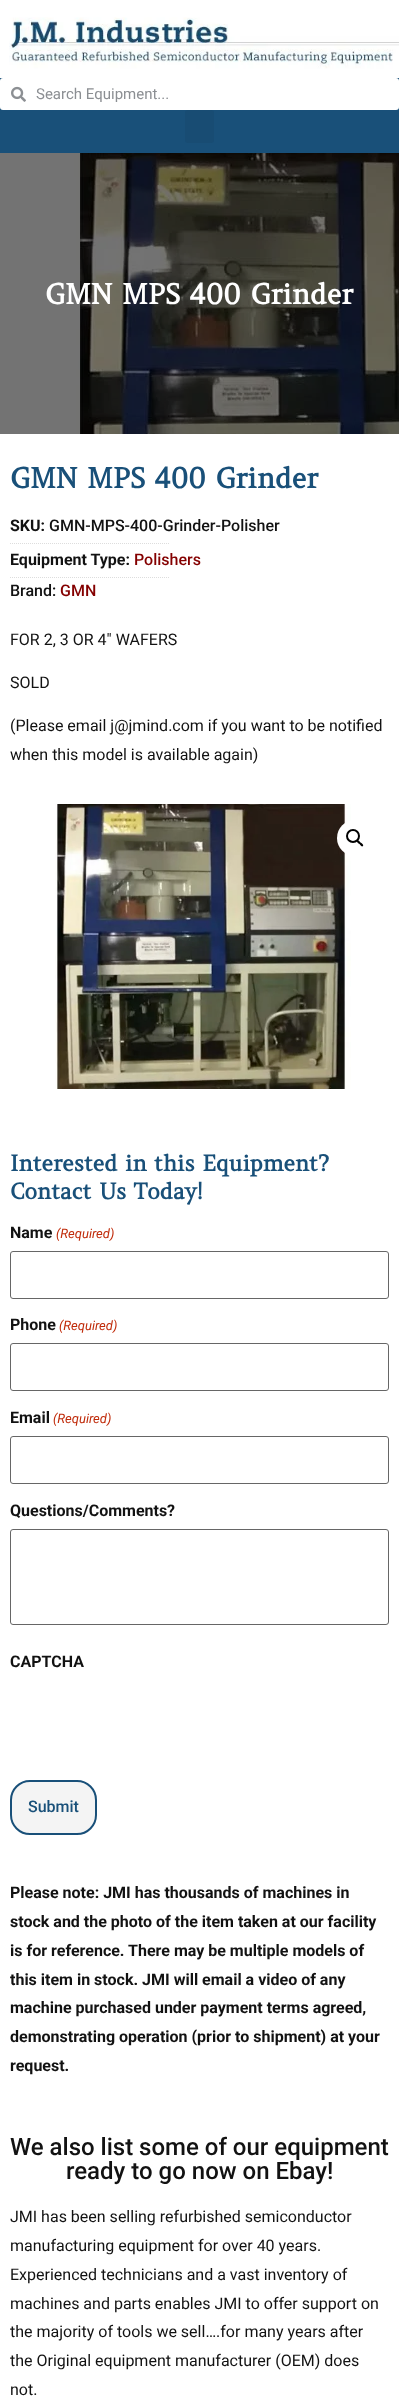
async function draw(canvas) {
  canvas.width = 399
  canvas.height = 2404
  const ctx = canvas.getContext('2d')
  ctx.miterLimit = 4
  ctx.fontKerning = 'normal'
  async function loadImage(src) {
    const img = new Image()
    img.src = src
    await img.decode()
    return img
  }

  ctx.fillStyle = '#fff'
  ctx.fillRect(0, 0, 399, 2404)
  ctx.drawImage(await loadImage('image0.png'), 9, 17, 390, 52)
  ctx.fillStyle = '#195079'
  ctx.fillRect(0, 78, 399, 75)
  ctx.fillStyle = '#fff'
  ctx.beginPath()
  ctx.roundRect(0, 78, 399, 32, 3)
  ctx.fill()
  ctx.drawImage(await loadImage('image1.png'), 11, 86, 15, 16)
  ctx.font = '15px Roboto'
  ctx.fillStyle = '#8c8f93'
  ctx.fillText('Search Equipment...', 36, 99)
  ctx.fillStyle = '#184c73'
  ctx.beginPath()
  ctx.roundRect(185, 110, 29, 33, 3)
  ctx.fill()
  ctx.drawImage(await loadImage('image2.png'), 0, 153, 399, 281)
  ctx.font = 'bold 28px Amethysta'
  ctx.fillStyle = '#fff'
  ctx.fillText('GMN MPS 400 Grinder', 45, 304)
  ctx.fillStyle = '#195079'
  ctx.fillText('GMN MPS 400 Grinder', 10, 488)
  ctx.font = 'bold 16px Roboto'
  ctx.fillStyle = '#121212'
  ctx.fillText('SKU:', 10, 531)
  ctx.font = '500 16px Roboto'
  ctx.fillText('GMN-MPS-400-Grinder-Polisher', 49, 531)
  ctx.beginPath()
  ctx.moveTo(10, 543.5)
  ctx.lineTo(169, 543.5)
  ctx.strokeStyle = '#ddd'
  ctx.setLineDash([1, 1])
  ctx.stroke()
  ctx.font = 'bold 16px Roboto'
  ctx.fillText('Equipment Type:', 10, 565)
  ctx.font = '500 16px Roboto'
  ctx.fillStyle = '#840000'
  ctx.fillText('Polishers', 134, 565)
  ctx.beginPath()
  ctx.moveTo(10, 577.5)
  ctx.lineTo(169, 577.5)
  ctx.stroke()
  ctx.fillStyle = '#121212'
  ctx.fillText('Brand:', 10, 596)
  ctx.fillStyle = '#840000'
  ctx.fillText('GMN', 60, 596)
  ctx.font = '16px Roboto'
  ctx.fillStyle = '#121212'
  ctx.fillText('FOR 2, 3 OR 4″ WAFERS', 10, 645)
  ctx.fillText('SOLD', 10, 688)
  ctx.fillText('(Please email j@jmind.com if you want to be notified', 10, 731)
  ctx.fillText('when this model is available again)', 10, 760)
  ctx.drawImage(await loadImage('image3.png'), 55, 804, 296, 285)
  ctx.fillStyle = '#fff'
  ctx.beginPath()
  ctx.arc(355, 838, 18, 0, 2 * Math.PI)
  ctx.fill()
  ctx.beginPath()
  ctx.arc(353, 836, 6, 0, 2 * Math.PI)
  ctx.strokeStyle = '#000'
  ctx.lineWidth = 2
  ctx.setLineDash([])
  ctx.stroke()
  ctx.fillStyle = '#000'
  ctx.beginPath()
  ctx.moveTo(357, 840.5)
  ctx.bezierCurveTo(358.5, 839.5, 360, 842, 360.5, 842.5)
  ctx.bezierCurveTo(361.5, 843, 364, 845, 363, 846)
  ctx.bezierCurveTo(361.5, 847.5, 360, 844.5, 359.5, 844)
  ctx.bezierCurveTo(358.5, 843.5, 356, 841.5, 357, 840.5)
  ctx.closePath()
  ctx.fill()
  ctx.font = 'bold 22px Amethysta'
  ctx.fillStyle = '#195079'
  ctx.fillText('Interested in this Equipment?', 10, 1171)
  ctx.fillText('Contact Us Today!', 10, 1199)
  ctx.font = 'bold 16px Roboto'
  ctx.fillStyle = '#121212'
  ctx.fillText('Name', 10, 1238)
  ctx.font = 'italic 13px Roboto'
  ctx.fillStyle = '#c02b0a'
  ctx.fillText('(Required)', 56, 1238)
  ctx.beginPath()
  ctx.roundRect(10.5, 1251.5, 378, 47, 2.5)
  ctx.strokeStyle = '#666'
  ctx.lineWidth = 1
  ctx.stroke()
  ctx.font = 'bold 16px Roboto'
  ctx.fillStyle = '#121212'
  ctx.fillText('Phone', 10, 1330)
  ctx.font = 'italic 13px Roboto'
  ctx.fillStyle = '#c02b0a'
  ctx.fillText('(Required)', 59, 1330)
  ctx.beginPath()
  ctx.roundRect(10.5, 1343.5, 378, 47, 2.5)
  ctx.stroke()
  ctx.font = 'bold 16px Roboto'
  ctx.fillStyle = '#121212'
  ctx.fillText('Email', 10, 1423)
  ctx.font = 'italic 13px Roboto'
  ctx.fillStyle = '#c02b0a'
  ctx.fillText('(Required)', 53, 1423)
  ctx.beginPath()
  ctx.roundRect(10.5, 1436.5, 378, 47, 2.5)
  ctx.stroke()
  ctx.font = 'bold 16px Roboto'
  ctx.fillStyle = '#121212'
  ctx.fillText('Questions/Comments?', 10, 1516)
  ctx.beginPath()
  ctx.roundRect(10.5, 1529.5, 378, 95, 2.5)
  ctx.stroke()
  ctx.fillText('CAPTCHA', 10, 1667)
  ctx.fillStyle = '#f4f4f4'
  ctx.beginPath()
  ctx.roundRect(11, 1781, 85, 53, 19)
  ctx.fill()
  ctx.strokeStyle = '#195079'
  ctx.lineWidth = 2
  ctx.stroke()
  ctx.font = '500 16px Roboto'
  ctx.fillStyle = '#195079'
  ctx.fillText('Submit', 28, 1812)
  ctx.font = 'bold 16px Roboto'
  ctx.fillStyle = '#121212'
  ctx.fillText('Please note: JMI has thousands of machines in', 10, 1898)
  ctx.fillText('stock and the photo of the item taken at our facility', 10, 1927)
  ctx.fillText('is for reference. There may be multiple models of', 10, 1956)
  ctx.fillText('this item in stock. JMI will email a video of any', 10, 1985)
  ctx.fillText('machine purchased under payment terms agreed,', 10, 2013)
  ctx.fillText('demonstrating operation (prior to shipment) at your', 10, 2042)
  ctx.fillText('request.', 10, 2071)
  ctx.font = '500 24px Roboto'
  ctx.fillText('We also list some of our equipment', 10, 2155)
  ctx.fillText('ready to go now on Ebay!', 66, 2179)
  ctx.font = '16px Roboto'
  ctx.fillText('JMI has been selling refurbished semiconductor', 10, 2222)
  ctx.fillText('manufacturing equipment for over 40 years.', 10, 2251)
  ctx.fillText('Experienced technicians and a vast inventory of', 10, 2280)
  ctx.fillText('machines and parts enables JMI to offer support on', 10, 2309)
  ctx.fillText('the majority of tools we sell….for many years after', 10, 2337)
  ctx.fillText('the Original equipment manufacturer (OEM) does', 10, 2366)
  ctx.fillText('not.', 10, 2395)
}

draw(document.querySelector('canvas'))
